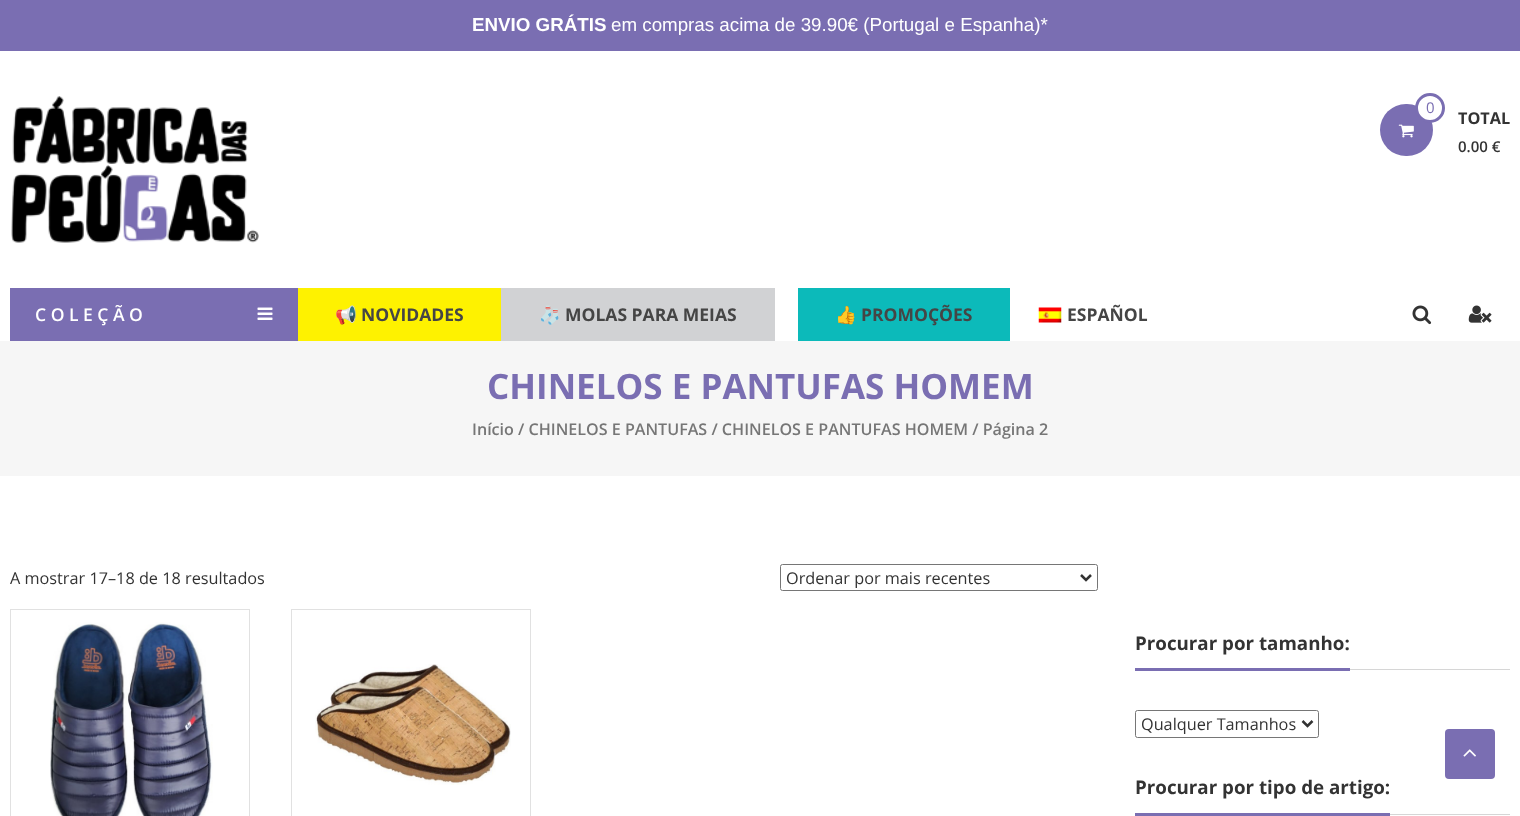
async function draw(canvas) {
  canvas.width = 1520
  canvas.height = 816
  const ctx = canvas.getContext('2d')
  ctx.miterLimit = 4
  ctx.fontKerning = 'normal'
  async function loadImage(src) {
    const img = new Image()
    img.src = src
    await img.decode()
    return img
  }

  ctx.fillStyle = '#fff'
  ctx.fillRect(0, 0, 1520, 816)
  ctx.fillStyle = '#7a6eb2'
  ctx.fillRect(0, 0, 1520, 51)
  ctx.font = 'bold 18.75px Liberation Sans'
  ctx.fillStyle = '#fff'
  ctx.fillText('ENVIO GRÁTIS', 472, 31)
  ctx.font = '18.75px Liberation Sans'
  ctx.fillText('em compras acima de 39.90€ (Portugal e Espanha)*', 611, 31)
  ctx.drawImage(await loadImage('image0.png'), 11, 96, 248, 147)
  ctx.fillStyle = '#7a6eb2'
  ctx.beginPath()
  ctx.roundRect(1380, 104, 53, 52, 26)
  ctx.fill()
  ctx.fillStyle = '#fff'
  ctx.beginPath()
  ctx.arc(1430, 108, 13.5, 0, 2 * Math.PI)
  ctx.fill()
  ctx.strokeStyle = '#7a6eb2'
  ctx.lineWidth = 3
  ctx.stroke()
  ctx.font = '15px Open Sans'
  ctx.fillStyle = '#7a6eb2'
  ctx.fillText('0', 1426, 113)
  ctx.drawImage(await loadImage('image1.png'), 1398, 124, 16, 14)
  ctx.font = 'bold 16.25px Open Sans'
  ctx.fillStyle = '#333'
  ctx.fillText('TOTAL', 1458, 124)
  ctx.font = '600 15px Open Sans'
  ctx.fillText('0.00 €', 1458, 152)
  ctx.fillStyle = '#7a6eb2'
  ctx.fillRect(10, 288, 288, 53)
  ctx.font = '600 17.5px Open Sans'
  ctx.fillStyle = '#fff'
  ctx.fillText('C O L E Ç Ã O', 35, 321)
  ctx.drawImage(await loadImage('image2.png'), 257, 307, 16, 13)
  ctx.fillStyle = '#fef200'
  ctx.fillRect(298, 288, 203, 53)
  ctx.font = 'bold 17.5px Noto Color Emoji'
  ctx.fillStyle = '#454545'
  ctx.fillText('📢', 335, 321)
  ctx.font = 'bold 17.5px Open Sans'
  ctx.fillText('NOVIDADES', 361, 321)
  ctx.fillStyle = '#d1d2d4'
  ctx.fillRect(501, 288, 274, 53)
  ctx.font = 'bold 17.5px Noto Color Emoji'
  ctx.fillStyle = '#454545'
  ctx.fillText('🧦', 539, 321)
  ctx.font = 'bold 17.5px Open Sans'
  ctx.fillText('MOLAS PARA MEIAS', 565, 321)
  ctx.fillStyle = '#0cbaba'
  ctx.fillRect(798, 288, 212, 53)
  ctx.font = 'bold 17.5px Noto Color Emoji'
  ctx.fillStyle = '#454545'
  ctx.fillText('👍', 835, 321)
  ctx.font = 'bold 17.5px Open Sans'
  ctx.fillText('PROMOÇÕES', 861, 321)
  ctx.drawImage(await loadImage('image3.png'), 1038, 307, 24, 16)
  ctx.fillText('ESPAÑOL', 1067, 321)
  ctx.drawImage(await loadImage('image4.png'), 1412, 305, 20, 20)
  ctx.drawImage(await loadImage('image5.png'), 1468, 305, 24, 18)
  ctx.fillStyle = '#f6f6f6'
  ctx.fillRect(0, 341, 1520, 135)
  ctx.font = 'bold 35px Open Sans'
  ctx.fillStyle = '#7a6eb2'
  ctx.fillText('CHINELOS E PANTUFAS HOMEM', 487, 399)
  ctx.font = '600 16.1px Open Sans'
  ctx.fillStyle = '#767676'
  ctx.fillText('Início / CHINELOS E PANTUFAS / CHINELOS E PANTUFAS HOMEM / Página 2', 472, 435)
  ctx.font = '16.25px Open Sans'
  ctx.fillStyle = '#333'
  ctx.fillText('A mostrar 17–18 de 18 resultados', 10, 584)
  ctx.beginPath()
  ctx.roundRect(780.5, 564.5, 317, 26, 2)
  ctx.strokeStyle = '#767676'
  ctx.lineWidth = 1
  ctx.stroke()
  ctx.beginPath()
  ctx.moveTo(1081, 575)
  ctx.lineTo(1086, 580)
  ctx.lineTo(1091, 575)
  ctx.strokeStyle = '#333'
  ctx.lineWidth = 2.5
  ctx.stroke()
  ctx.fillText('Ordenar por mais recentes', 786, 584)
  ctx.strokeStyle = '#e1e1e1'
  ctx.lineWidth = 1
  ctx.strokeRect(10.5, 609.5, 239, 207)
  ctx.drawImage(await loadImage('image6.png'), 50, 622, 163, 194)
  ctx.strokeRect(291.5, 609.5, 239, 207)
  ctx.drawImage(await loadImage('image7.png'), 315, 664, 196, 121)
  ctx.fillStyle = '#d6d6d6'
  ctx.fillRect(1350, 669, 160, 1)
  ctx.fillStyle = '#7a6eb2'
  ctx.fillRect(1135, 668, 215, 3)
  ctx.font = 'bold 18.75px Open Sans'
  ctx.fillStyle = '#333'
  ctx.fillText('Procurar por tamanho:', 1135, 650)
  ctx.beginPath()
  ctx.roundRect(1135.5, 710.5, 183, 27, 2)
  ctx.strokeStyle = '#767676'
  ctx.stroke()
  ctx.beginPath()
  ctx.moveTo(1302.5, 721)
  ctx.lineTo(1307.5, 726)
  ctx.lineTo(1312.5, 721)
  ctx.strokeStyle = '#333'
  ctx.lineWidth = 2.5
  ctx.stroke()
  ctx.font = '16.25px Open Sans'
  ctx.fillText('Qualquer Tamanhos', 1141, 730)
  ctx.fillStyle = '#d6d6d6'
  ctx.fillRect(1390, 814, 120, 1)
  ctx.fillStyle = '#7a6eb2'
  ctx.fillRect(1135, 813, 255, 3)
  ctx.font = 'bold 18.75px Open Sans'
  ctx.fillStyle = '#333'
  ctx.fillText('Procurar por tipo de artigo:', 1135, 794)
  ctx.fillStyle = '#7a6eb2'
  ctx.beginPath()
  ctx.roundRect(1445, 729, 50, 50, 4)
  ctx.fill()
  ctx.drawImage(await loadImage('image8.png'), 1463, 749, 13, 8)
}

draw(document.querySelector('canvas'))
